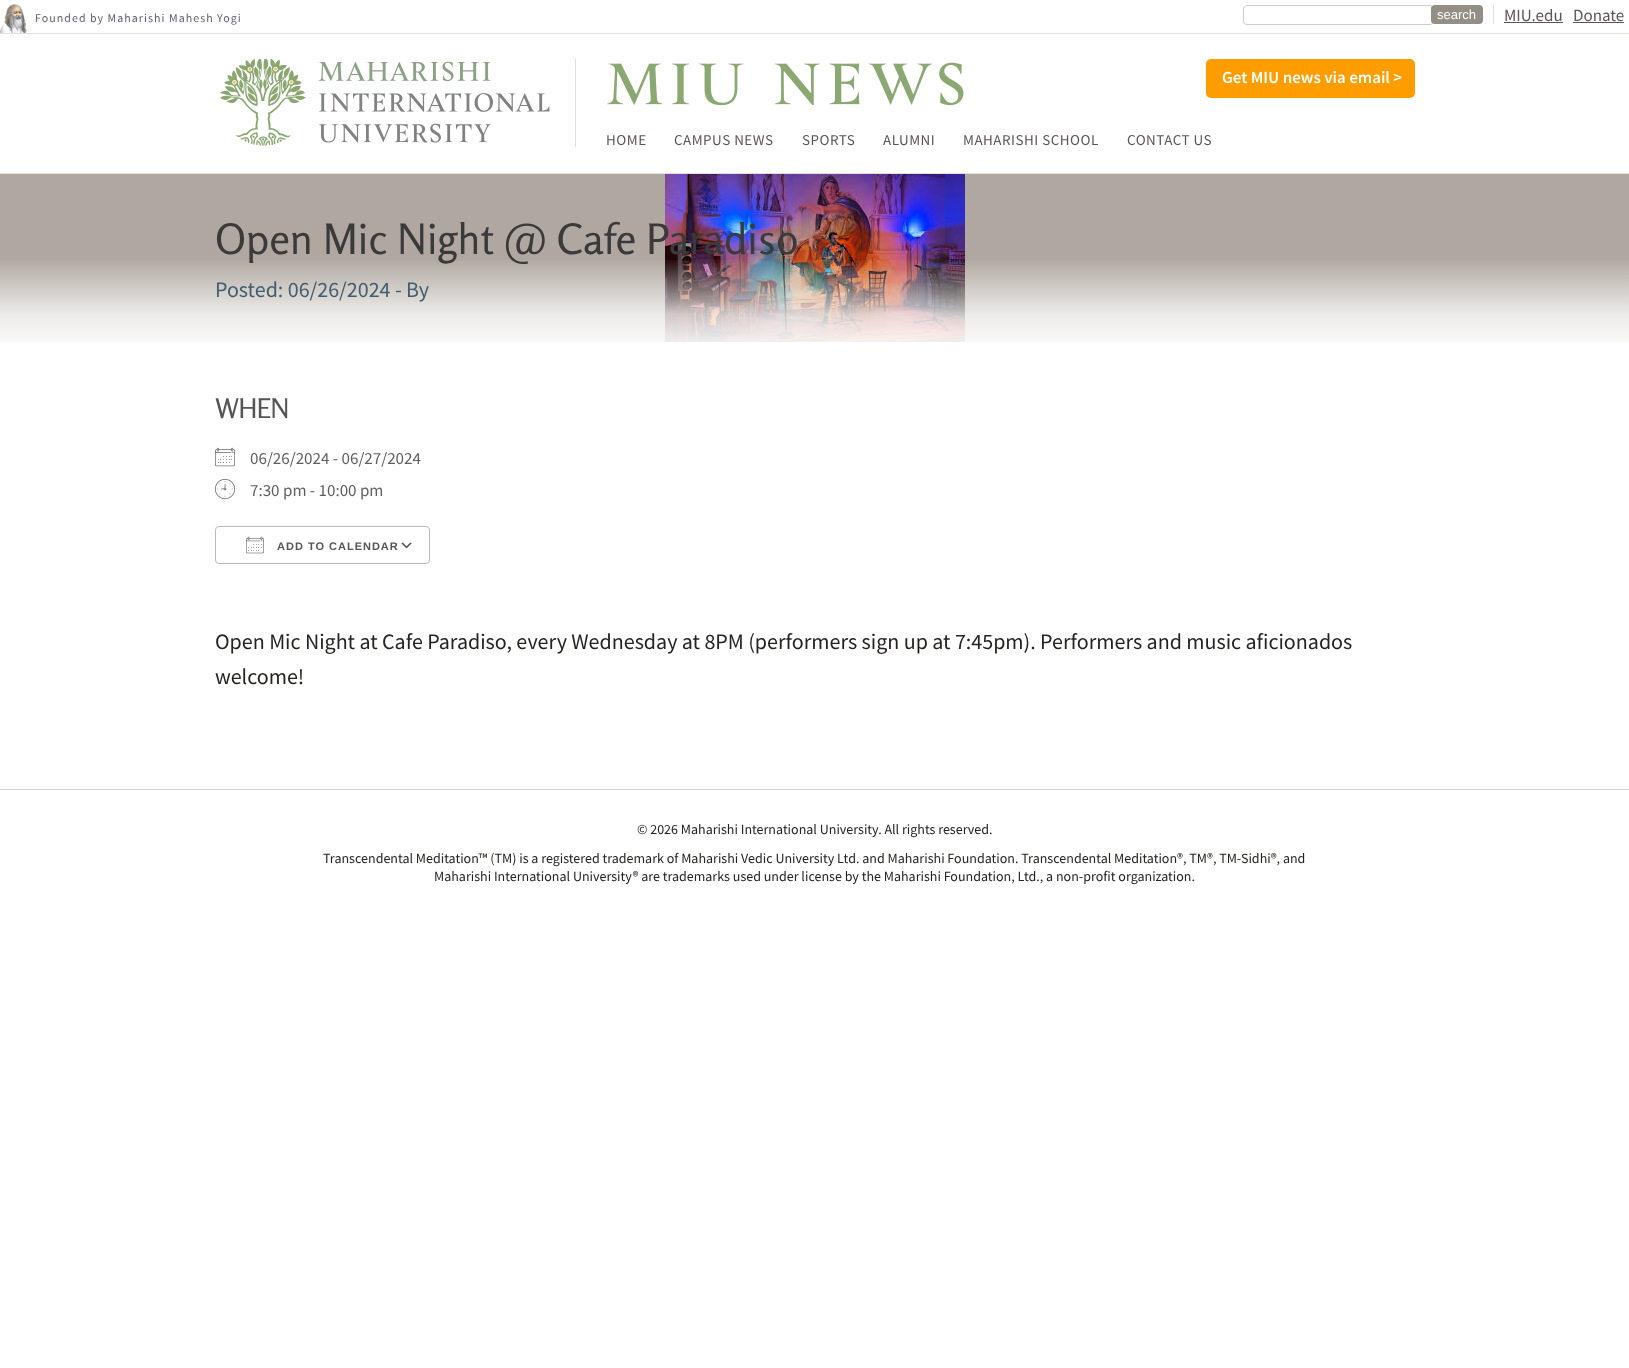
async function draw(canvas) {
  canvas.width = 1629
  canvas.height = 1368
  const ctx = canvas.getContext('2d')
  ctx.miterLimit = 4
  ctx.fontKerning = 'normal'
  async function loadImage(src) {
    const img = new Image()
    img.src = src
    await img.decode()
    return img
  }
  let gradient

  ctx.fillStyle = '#fff'
  ctx.fillRect(0, 0, 1629, 1368)
  ctx.drawImage(await loadImage('image0.png'), 0, 4, 29, 29)
  ctx.letterSpacing = '1.05px'
  ctx.font = '11.9px Source Sans Pro'
  ctx.fillStyle = '#5e5e71'
  ctx.fillText('Founded by Maharishi Mahesh Yogi', 35, 22)
  ctx.fillStyle = '#e2e0dc'
  ctx.fillRect(1493, 5, 1, 19)
  ctx.beginPath()
  ctx.roundRect(1243.5, 5.5, 190, 19, 3.5)
  ctx.strokeStyle = '#d0ccc4'
  ctx.stroke()
  ctx.fillStyle = '#938f86'
  ctx.beginPath()
  ctx.roundRect(1431, 5, 52, 19, 4)
  ctx.fill()
  ctx.letterSpacing = '0px'
  ctx.font = '13px Liberation Sans'
  ctx.fillStyle = '#fff'
  ctx.fillText('search', 1437, 19)
  ctx.font = '17px Source Sans Pro'
  ctx.fillStyle = '#5d5552'
  ctx.fillText('MIU.edu', 1504, 21)
  ctx.fillRect(1504, 22, 59, 1)
  ctx.fillText('Donate', 1573, 21)
  ctx.fillRect(1573, 22, 51, 1)
  ctx.fillStyle = '#e2e0dc'
  ctx.fillRect(0, 33, 1629, 1)
  ctx.fillRect(0, 173, 1629, 1)
  ctx.drawImage(await loadImage('image1.png'), 220, 59, 330, 87)
  ctx.fillStyle = '#e2e0dd'
  ctx.fillRect(575, 59, 1, 88)
  ctx.drawImage(await loadImage('image2.png'), 607, 62, 357, 44)
  ctx.fillStyle = '#ff9d00'
  ctx.beginPath()
  ctx.roundRect(1206, 59, 209, 39, 5)
  ctx.fill()
  ctx.font = '600 17px Source Sans Pro'
  ctx.fillStyle = '#fff'
  ctx.fillText('Get MIU news via email >', 1222, 83)
  ctx.letterSpacing = '0.5px'
  ctx.font = '15px Source Sans Pro'
  ctx.fillStyle = '#5d5552'
  ctx.fillText('HOME', 606, 145)
  ctx.fillText('CAMPUS NEWS', 674, 145)
  ctx.fillText('SPORTS', 802, 145)
  ctx.fillText('ALUMNI', 883, 145)
  ctx.fillText('MAHARISHI SCHOOL', 963, 145)
  ctx.fillText('CONTACT US', 1127, 145)
  ctx.fillStyle = '#b0a8a0'
  ctx.fillRect(0, 174, 1629, 168)
  ctx.drawImage(await loadImage('image3.png'), 665, 174, 300, 168)
  gradient = ctx.createLinearGradient(815, 342, 815, 258)
  gradient.addColorStop(0, '#ffffffed')
  gradient.addColorStop(0.33, '#ffffffc4')
  gradient.addColorStop(1, '#ffffff00')
  ctx.fillStyle = gradient
  ctx.fillRect(0, 260, 1629, 82)
  ctx.letterSpacing = '0px'
  ctx.font = '42px Rosario'
  ctx.fillStyle = '#3a3a3a'
  ctx.fillText('Open Mic Night @ Cafe Paradiso', 215, 254)
  ctx.font = '22px Source Sans Pro'
  ctx.fillStyle = '#405e6f'
  ctx.fillText('Posted: 06/26/2024 - By', 215, 297)
  ctx.letterSpacing = '-1px'
  ctx.font = '27px Rosario'
  ctx.fillStyle = '#555'
  ctx.fillText('WHEN', 215, 418)
  ctx.drawImage(await loadImage('image4.png'), 215, 447, 20, 20)
  ctx.letterSpacing = '0px'
  ctx.font = '17px Source Sans Pro'
  ctx.fillStyle = '#5e5e5e'
  ctx.fillText('06/26/2024 - 06/27/2024', 250, 464)
  ctx.drawImage(await loadImage('image5.png'), 215, 479, 20, 20)
  ctx.fillText('7:30 pm - 10:00 pm', 250, 496)
  ctx.drawImage(await loadImage('image6.png'), 401, 542, 11, 7)
  ctx.beginPath()
  ctx.roundRect(215.5, 526.5, 214, 37, 3.5)
  ctx.strokeStyle = '#bababa'
  ctx.stroke()
  ctx.drawImage(await loadImage('image7.png'), 246, 536, 18, 18)
  ctx.letterSpacing = '1px'
  ctx.font = 'bold 11px Liberation Sans'
  ctx.fillStyle = '#555'
  ctx.fillText('ADD TO CALENDAR', 277, 550)
  ctx.letterSpacing = '0px'
  ctx.font = '22px Source Sans Pro'
  ctx.fillStyle = '#26231f'
  ctx.fillText('Open Mic Night at Cafe Paradiso, every Wednesday at 8PM (performers sign up at 7:45pm). Performers and music aficionados', 215, 649)
  ctx.fillText('welcome!', 215, 684)
  ctx.fillStyle = '#d3d1cd'
  ctx.fillRect(0, 789, 1629, 1)
  ctx.font = '14px Source Sans Pro'
  ctx.fillStyle = '#26231f'
  ctx.fillText('© 2026 Maharishi International University. All rights reserved.', 637, 834)
  ctx.fillText('Transcendental Meditation™ (TM) is a registered trademark of Maharishi Vedic University Ltd. and Maharishi Foundation. Transcendental Meditation®, TM®, TM-Sidhi®, and', 323, 863)
  ctx.fillText('Maharishi International University® are trademarks used under license by the Maharishi Foundation, Ltd., a non-profit organization.', 434, 881)
}

draw(document.querySelector('canvas'))
